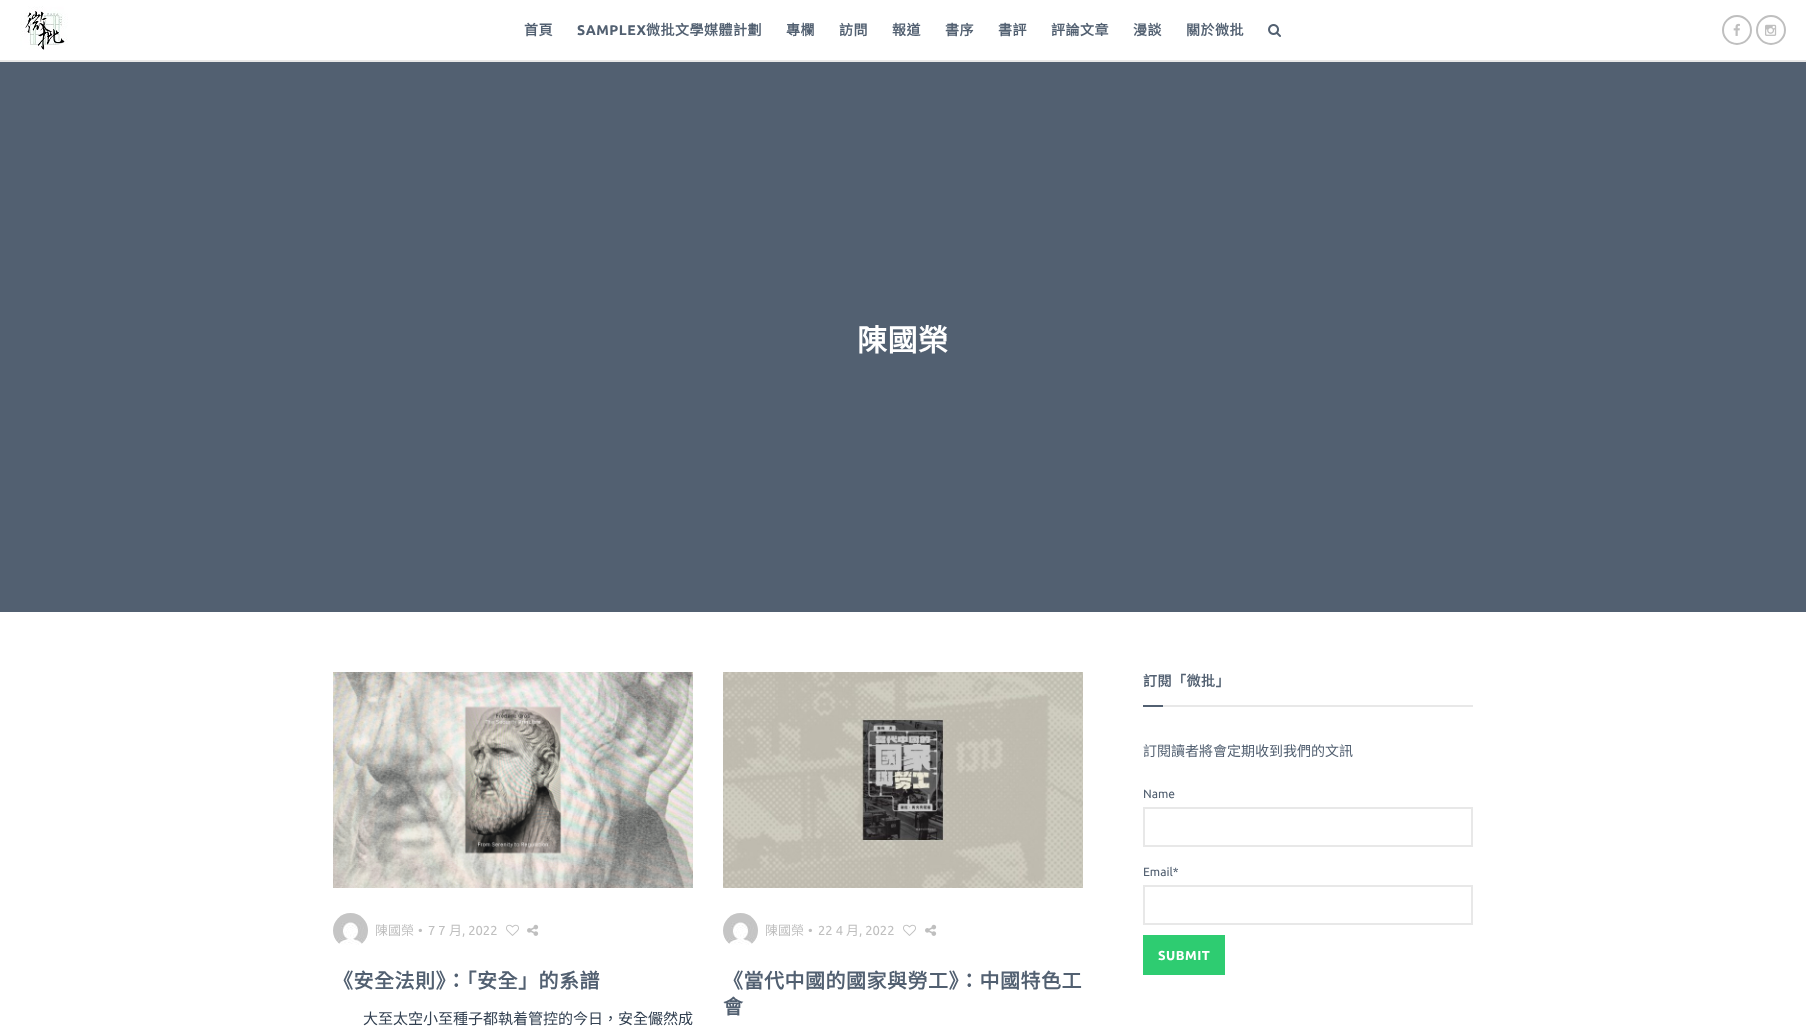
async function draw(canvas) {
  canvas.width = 1806
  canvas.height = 1029
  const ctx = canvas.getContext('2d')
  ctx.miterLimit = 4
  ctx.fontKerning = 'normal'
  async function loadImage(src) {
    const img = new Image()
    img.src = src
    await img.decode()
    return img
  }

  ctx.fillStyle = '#fff'
  ctx.fillRect(0, 0, 1806, 1029)
  ctx.fillStyle = '#e8e8e8'
  ctx.fillRect(0, 60, 1806, 2)
  ctx.drawImage(await loadImage('image0.png'), 20, 6, 48, 44)
  ctx.letterSpacing = '0.5px'
  ctx.font = 'bold 14px Noto Sans CJK TC'
  ctx.fillStyle = '#526071'
  ctx.fillText('首頁', 524, 35)
  ctx.font = 'bold 14px Ubuntu'
  ctx.fillText('SAMPLEX', 577, 35)
  ctx.font = 'bold 14px Noto Sans CJK TC'
  ctx.fillText('微批文學媒體計劃', 646, 35)
  ctx.fillText('專欄', 786, 35)
  ctx.fillText('訪問', 839, 35)
  ctx.fillText('報道', 892, 35)
  ctx.fillText('書序', 945, 35)
  ctx.fillText('書評', 998, 35)
  ctx.fillText('評論文章', 1051, 35)
  ctx.fillText('漫談', 1133, 35)
  ctx.fillText('關於微批', 1186, 35)
  ctx.drawImage(await loadImage('image1.png'), 1268, 24, 13, 13)
  ctx.beginPath()
  ctx.arc(1737, 30, 14, 0, 2 * Math.PI)
  ctx.strokeStyle = '#bfbfbf'
  ctx.lineWidth = 2
  ctx.stroke()
  ctx.drawImage(await loadImage('image2.png'), 1733, 23, 7, 13)
  ctx.beginPath()
  ctx.arc(1771, 30, 14, 0, 2 * Math.PI)
  ctx.stroke()
  ctx.drawImage(await loadImage('image3.png'), 1765, 24, 12, 12)
  ctx.fillRect(0, 62, 1806, 550)
  ctx.font = 'bold 30px Noto Sans CJK TC'
  ctx.fillStyle = '#fff'
  ctx.fillText('陳國榮', 857, 351)
  ctx.fillStyle = '#e8e8e8'
  ctx.fillRect(1163, 705, 310, 2)
  ctx.font = 'bold 14px Noto Sans CJK TC'
  ctx.fillStyle = '#526071'
  ctx.fillText('訂閱「微批」', 1143, 686)
  ctx.fillRect(1143, 705, 20, 2)
  ctx.letterSpacing = '0px'
  ctx.font = '14px Noto Sans CJK TC'
  ctx.fillText('訂閱讀者將會定期收到我們的文訊', 1143, 756)
  ctx.font = '12px Ubuntu'
  ctx.fillText('Name', 1143, 798)
  ctx.strokeStyle = '#e8e8e8'
  ctx.strokeRect(1144, 808, 328, 38)
  ctx.fillText('Email*', 1143, 876)
  ctx.strokeRect(1144, 886, 328, 38)
  ctx.fillStyle = '#2ecc71'
  ctx.fillRect(1143, 935, 82, 40)
  ctx.letterSpacing = '0.5px'
  ctx.font = 'bold 13px Ubuntu'
  ctx.fillStyle = '#fff'
  ctx.fillText('SUBMIT', 1158, 960)
  ctx.drawImage(await loadImage('image4.png'), 333, 672, 360, 216)
  ctx.drawImage(await loadImage('image5.png'), 333, 913, 35, 32)
  ctx.letterSpacing = '0px'
  ctx.font = '13px Noto Sans CJK TC'
  ctx.fillStyle = '#bfbfbf'
  ctx.fillText('陳國榮', 375, 935)
  ctx.font = '13px Ubuntu'
  ctx.fillText('•', 418, 935)
  ctx.fillText('7 7', 428, 935)
  ctx.font = '13px Noto Sans CJK TC'
  ctx.fillText('月', 449, 935)
  ctx.font = '13px Ubuntu'
  ctx.fillText(', 2022', 462, 935)
  ctx.drawImage(await loadImage('image6.png'), 506, 924, 13, 12)
  ctx.drawImage(await loadImage('image7.png'), 527, 924, 12, 12)
  ctx.letterSpacing = '0.5px'
  ctx.font = 'bold 20px Noto Sans CJK TC'
  ctx.fillStyle = '#526071'
  ctx.fillText('《安全法則》：「安全」的系譜', 333, 988)
  ctx.letterSpacing = '0px'
  ctx.font = '15px Noto Sans CJK TC'
  ctx.fillStyle = '#324051'
  ctx.fillText('大至太空小至種子都執着管控的今日，安全儼然成', 363, 1024)
  ctx.drawImage(await loadImage('image8.png'), 723, 672, 360, 216)
  ctx.drawImage(await loadImage('image5.png'), 723, 913, 35, 32)
  ctx.font = '13px Noto Sans CJK TC'
  ctx.fillStyle = '#bfbfbf'
  ctx.fillText('陳國榮', 765, 935)
  ctx.font = '13px Ubuntu'
  ctx.fillText('•', 808, 935)
  ctx.fillText('22 4', 818, 935)
  ctx.font = '13px Noto Sans CJK TC'
  ctx.fillText('月', 846, 935)
  ctx.font = '13px Ubuntu'
  ctx.fillText(', 2022', 859, 935)
  ctx.drawImage(await loadImage('image6.png'), 903, 924, 13, 12)
  ctx.drawImage(await loadImage('image7.png'), 925, 924, 12, 12)
  ctx.letterSpacing = '0.5px'
  ctx.font = 'bold 20px Noto Sans CJK TC'
  ctx.fillStyle = '#526071'
  ctx.fillText('《當代中國的國家與勞工》：中國特色工', 723, 988)
  ctx.fillText('會', 723, 1014)
}

draw(document.querySelector('canvas'))
